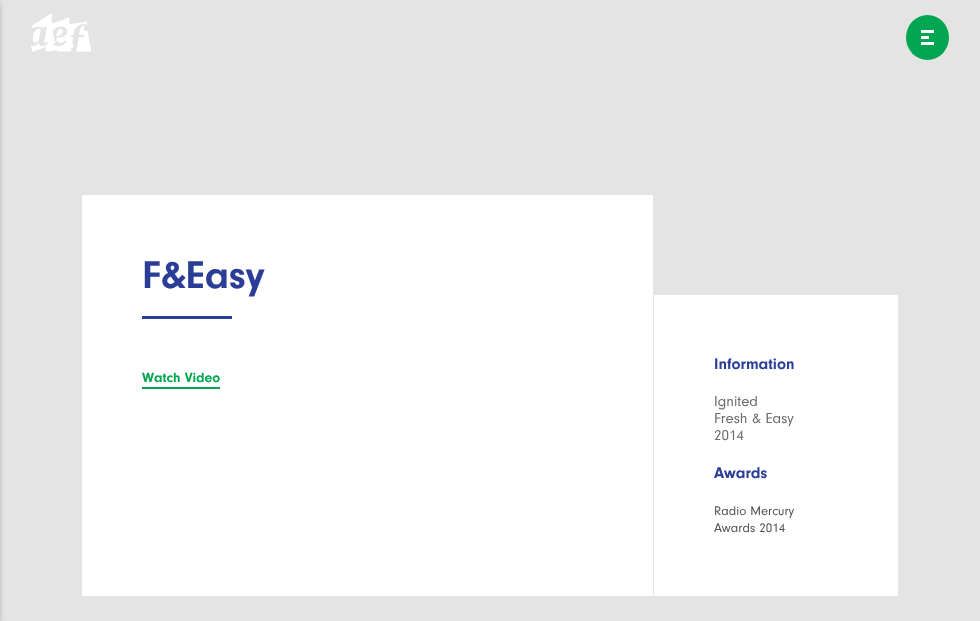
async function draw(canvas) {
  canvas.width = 980
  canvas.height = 621
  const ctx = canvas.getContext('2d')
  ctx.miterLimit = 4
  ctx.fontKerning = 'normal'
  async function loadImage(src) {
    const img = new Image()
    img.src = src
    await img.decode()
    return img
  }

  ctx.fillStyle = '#e4e4e4'
  ctx.fillRect(0, 0, 980, 621)
  ctx.fillStyle = '#00000033'
  ctx.filter = 'blur(2.5px)'
  ctx.beginPath()
  ctx.rect(-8, 3, 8, 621)
  ctx.fill()
  ctx.filter = 'none'
  ctx.drawImage(await loadImage('image0.png'), 31, 13, 60, 39)
  ctx.fillStyle = '#00a651'
  ctx.beginPath()
  ctx.ellipse(927.5, 37.5, 21.5, 22.5, 0, 0, 2 * Math.PI)
  ctx.fill()
  ctx.fillStyle = '#fff'
  ctx.fillRect(921, 42, 13, 3)
  ctx.fillRect(921, 30, 13, 3)
  ctx.fillRect(921, 36, 8, 3)
  ctx.fillRect(82, 195, 571, 401)
  ctx.font = '40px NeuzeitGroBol'
  ctx.fillStyle = '#2b3e97'
  ctx.fillText('F&Easy', 142, 288)
  ctx.fillRect(142, 316, 90, 3)
  ctx.font = '14px NeuzeitGroBol'
  ctx.fillStyle = '#00a651'
  ctx.fillText('Watch Video', 142, 382)
  ctx.fillRect(142, 387, 78, 2)
  ctx.fillStyle = '#fff'
  ctx.fillRect(654, 295, 244, 301)
  ctx.font = '16px NeuzeitGroBol'
  ctx.fillStyle = '#2b3e97'
  ctx.fillText('Information', 714, 369)
  ctx.font = '15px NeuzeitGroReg'
  ctx.fillStyle = '#696c69'
  ctx.fillText('Ignited', 714, 406)
  ctx.fillText('Fresh & Easy', 714, 423)
  ctx.fillText('2014', 714, 440)
  ctx.font = '16px NeuzeitGroBol'
  ctx.fillStyle = '#2b3e97'
  ctx.fillText('Awards', 714, 478)
  ctx.font = '13px NeuzeitGroReg'
  ctx.fillStyle = '#515151'
  ctx.fillText('Radio Mercury', 714, 515)
  ctx.fillText('Awards 2014', 714, 532)
}

draw(document.querySelector('canvas'))
